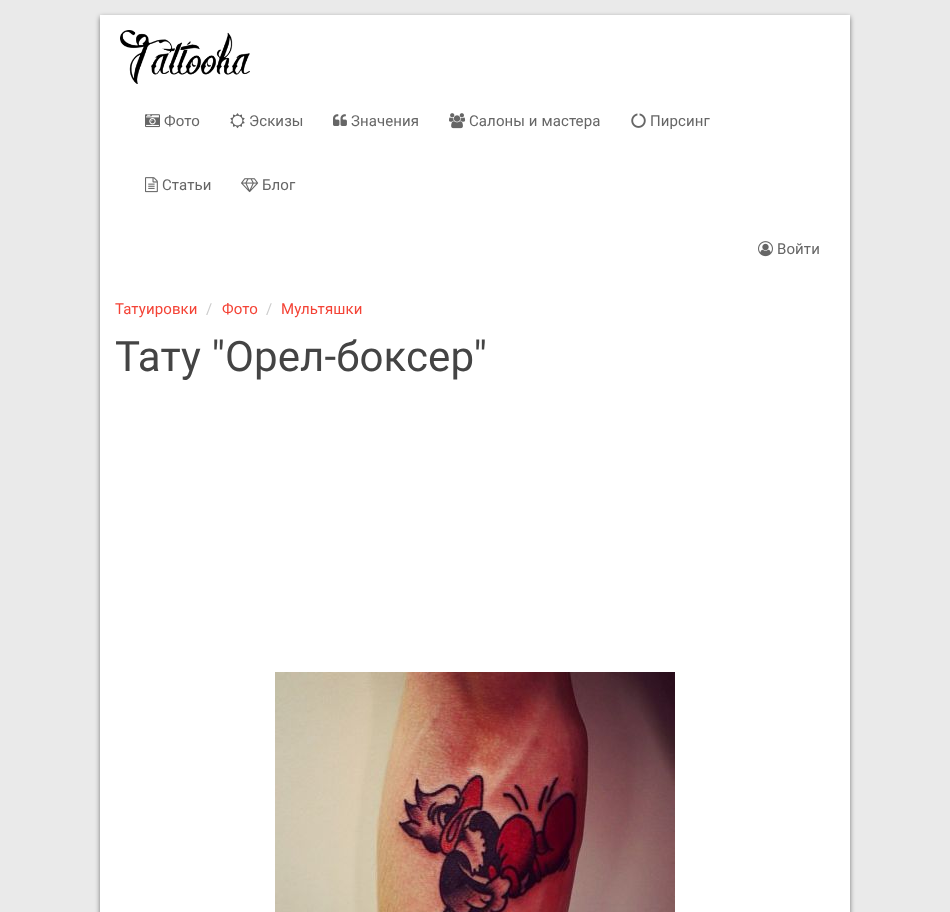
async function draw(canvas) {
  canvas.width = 950
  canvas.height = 912
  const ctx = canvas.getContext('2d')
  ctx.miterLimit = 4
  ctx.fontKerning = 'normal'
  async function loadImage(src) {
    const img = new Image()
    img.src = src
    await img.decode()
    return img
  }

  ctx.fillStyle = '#eaeaea'
  ctx.fillRect(0, 0, 950, 912)
  ctx.fillStyle = '#00000080'
  ctx.filter = 'blur(2.5px)'
  ctx.beginPath()
  ctx.rect(100, 17, 750, 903)
  ctx.fill()
  ctx.filter = 'none'
  ctx.fillStyle = '#fff'
  ctx.fillRect(100, 15, 750, 897)
  ctx.drawImage(await loadImage('image0.png'), 120, 30, 130, 54)
  ctx.drawImage(await loadImage('image1.png'), 145, 114, 15, 14)
  ctx.letterSpacing = '0.1px'
  ctx.font = '15px Roboto'
  ctx.fillStyle = '#666'
  ctx.fillText('Фото', 164, 126)
  ctx.drawImage(await loadImage('image2.png'), 230, 113, 15, 16)
  ctx.fillText('Эскизы', 249, 126)
  ctx.drawImage(await loadImage('image3.png'), 333, 114, 14, 12)
  ctx.fillText('Значения', 351, 126)
  ctx.drawImage(await loadImage('image4.png'), 449, 113, 17, 16)
  ctx.fillText('Салоны и мастера', 469, 126)
  ctx.drawImage(await loadImage('image5.png'), 631, 113, 15, 15)
  ctx.fillText('Пирсинг', 650, 126)
  ctx.drawImage(await loadImage('image6.png'), 145, 177, 13, 16)
  ctx.fillText('Статьи', 162, 190)
  ctx.drawImage(await loadImage('image7.png'), 241, 178, 18, 15)
  ctx.fillText('Блог', 262, 190)
  ctx.drawImage(await loadImage('image8.png'), 758, 241, 15, 16)
  ctx.fillText('Войти', 777, 254)
  ctx.fillStyle = '#f44336'
  ctx.fillText('Татуировки', 115, 314)
  ctx.fillStyle = '#ccc'
  ctx.fillText('/', 206, 314)
  ctx.fillStyle = '#f44336'
  ctx.fillText('Фото', 222, 314)
  ctx.fillStyle = '#ccc'
  ctx.fillText('/', 266, 314)
  ctx.fillStyle = '#f44336'
  ctx.fillText('Мультяшки', 281, 314)
  ctx.font = '42px Roboto'
  ctx.fillStyle = '#444'
  ctx.fillText('Тату "Орел-боксер"', 115, 371)
  ctx.drawImage(await loadImage('image9.png'), 275, 672, 400, 240)
}

draw(document.querySelector('canvas'))
